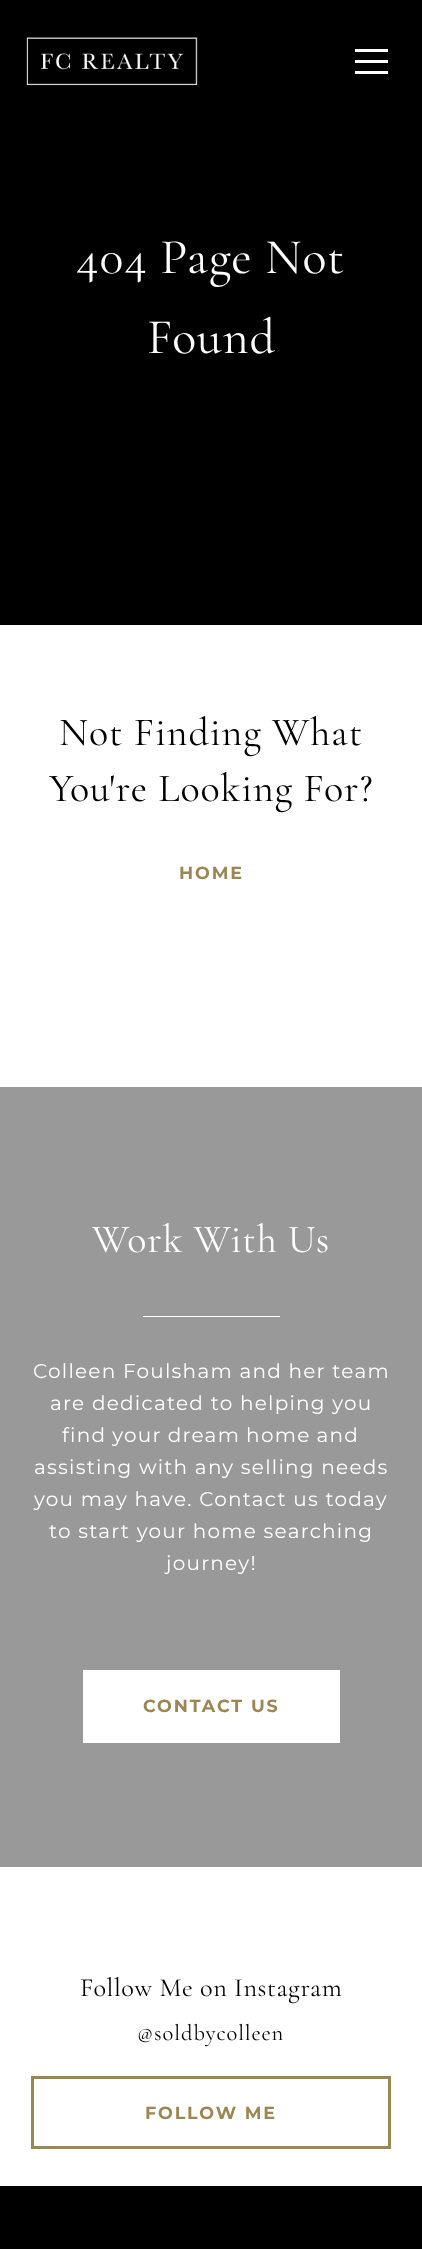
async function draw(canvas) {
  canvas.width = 422
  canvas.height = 2249
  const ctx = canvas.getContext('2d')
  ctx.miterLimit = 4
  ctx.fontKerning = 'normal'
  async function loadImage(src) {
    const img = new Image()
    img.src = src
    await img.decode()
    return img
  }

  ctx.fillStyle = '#fff'
  ctx.fillRect(0, 0, 422, 2249)
  ctx.fillStyle = '#000'
  ctx.fillRect(0, 0, 422, 625)
  ctx.drawImage(await loadImage('image0.png'), 26, 37, 172, 49)
  ctx.fillStyle = '#fff'
  ctx.fillRect(355, 60, 33, 3)
  ctx.fillRect(355, 49, 33, 3)
  ctx.fillRect(355, 71, 33, 3)
  ctx.letterSpacing = '0.9px'
  ctx.font = '50px Cormorant Garamond'
  ctx.fillText('404 Page Not', 76, 273)
  ctx.fillText('Found', 147, 353)
  ctx.font = '40px Cormorant Garamond'
  ctx.fillStyle = '#000'
  ctx.fillText('Not Finding What', 59, 745)
  ctx.fillText('You\'re Looking For?', 49, 801)
  ctx.letterSpacing = '1.9px'
  ctx.font = 'bold 17.5px Montserrat'
  ctx.fillStyle = '#9c8754'
  ctx.fillText('HOME', 179, 879)
  ctx.fillStyle = '#999'
  ctx.fillRect(0, 1087, 422, 780)
  ctx.letterSpacing = '0.9px'
  ctx.font = '40px Cormorant Garamond'
  ctx.fillStyle = '#fff'
  ctx.fillText('Work With Us', 92, 1252)
  ctx.fillRect(143, 1316, 137, 1)
  ctx.letterSpacing = '1.25px'
  ctx.font = '20px Montserrat'
  ctx.fillText('Colleen Foulsham and her team', 33, 1378)
  ctx.fillText('are dedicated to helping you', 50, 1410)
  ctx.wordSpacing = '-0.5px'
  ctx.fillText('find your dream home and', 62, 1442)
  ctx.wordSpacing = '0px'
  ctx.fillText('assisting with any selling needs', 34, 1474)
  ctx.fillText('you may have. Contact us today', 34, 1506)
  ctx.fillText('to start your home searching', 49, 1538)
  ctx.fillText('journey!', 166, 1570)
  ctx.fillRect(83, 1670, 257, 73)
  ctx.letterSpacing = '1.9px'
  ctx.font = 'bold 17.5px Montserrat'
  ctx.fillStyle = '#9c8754'
  ctx.fillText('CONTACT US', 143, 1712)
  ctx.letterSpacing = '0.6px'
  ctx.font = '26.25px Cormorant Garamond'
  ctx.fillStyle = '#000'
  ctx.fillText('Follow Me on Instagram', 80, 1996)
  ctx.letterSpacing = '0.9px'
  ctx.font = '22.5px Cormorant Garamond'
  ctx.fillText('@soldbycolleen', 137, 2040)
  ctx.strokeStyle = '#9c8754'
  ctx.lineWidth = 3
  ctx.strokeRect(32.5, 2077.5, 357, 70)
  ctx.letterSpacing = '1.9px'
  ctx.font = 'bold 17.5px Montserrat'
  ctx.fillStyle = '#9c8754'
  ctx.fillText('FOLLOW ME', 145, 2119)
  ctx.fillStyle = '#000'
  ctx.fillRect(0, 2186, 422, 63)
}

draw(document.querySelector('canvas'))
